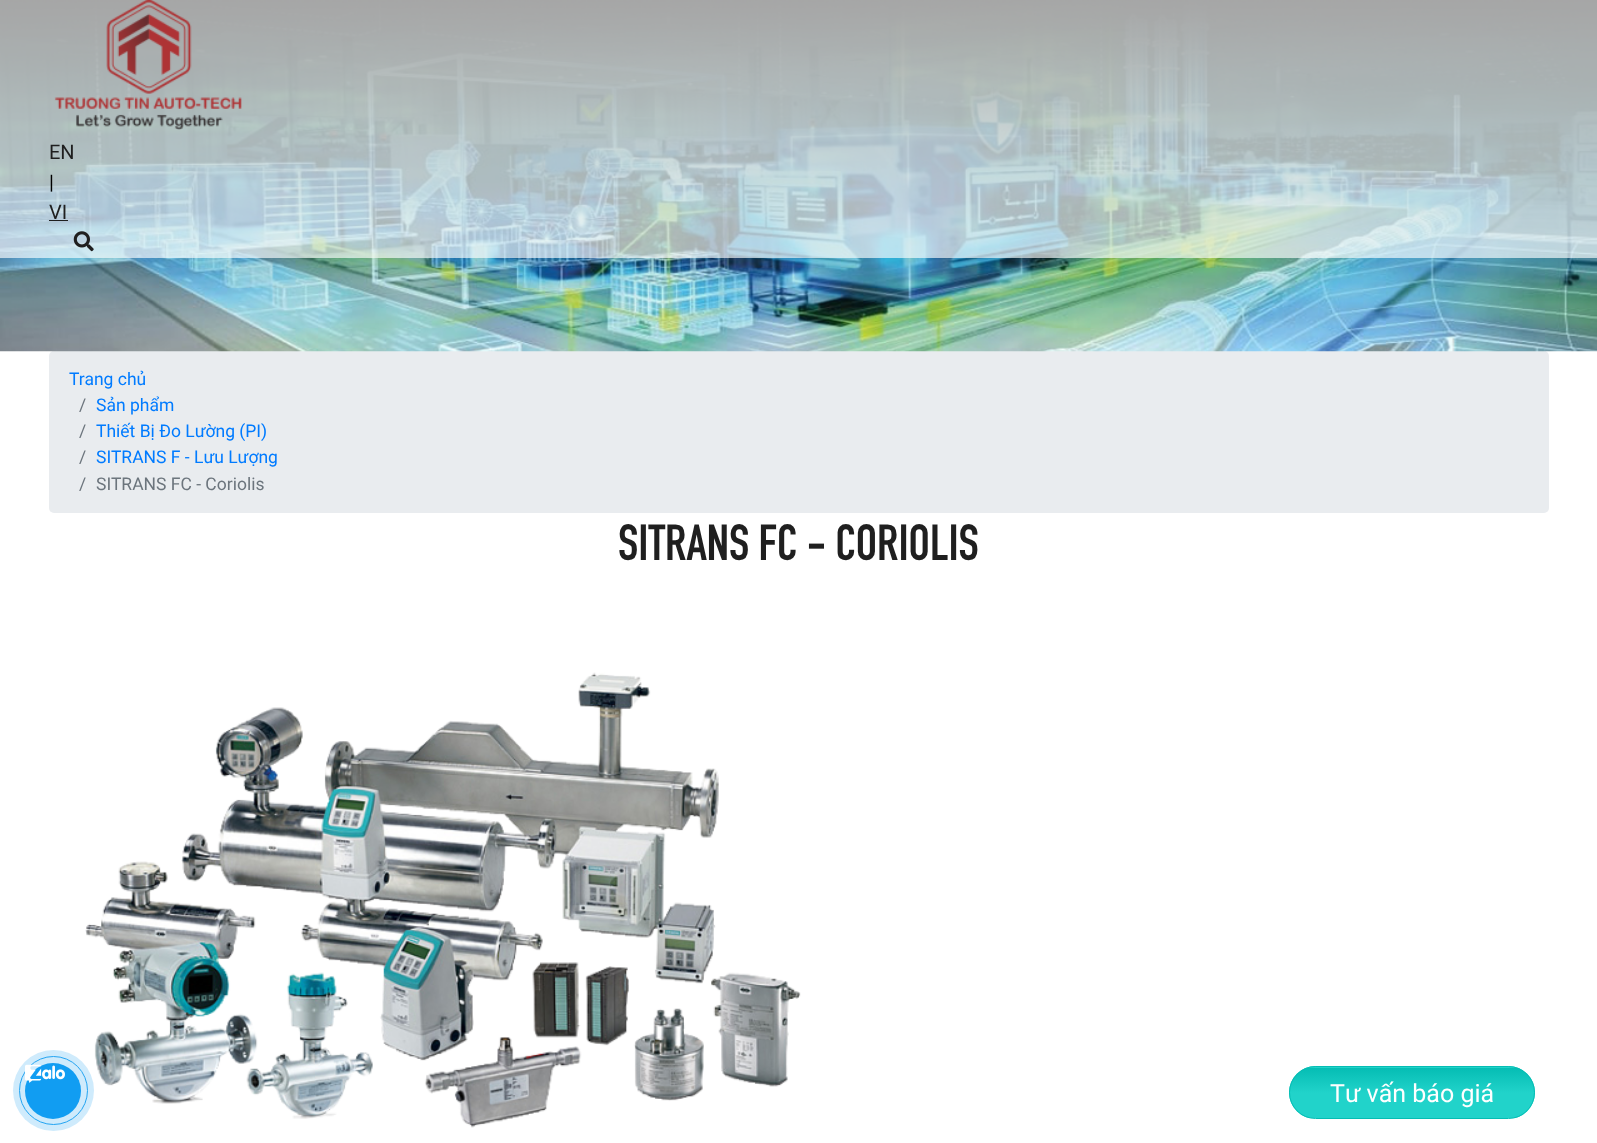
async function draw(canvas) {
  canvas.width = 1597
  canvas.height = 1143
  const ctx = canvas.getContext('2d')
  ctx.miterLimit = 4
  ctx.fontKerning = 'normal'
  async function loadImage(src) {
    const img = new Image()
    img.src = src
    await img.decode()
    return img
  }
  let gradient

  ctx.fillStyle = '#fff'
  ctx.fillRect(0, 0, 1597, 1143)
  ctx.fillStyle = '#e9ecef'
  ctx.beginPath()
  ctx.roundRect(49, 351, 1500, 162, 5)
  ctx.fill()
  ctx.drawImage(await loadImage('image0.png'), 0, 0, 1597, 352)
  ctx.fillStyle = '#ffffffa6'
  ctx.fillRect(0, 0, 1597, 258)
  ctx.drawImage(await loadImage('image1.png'), 54, 0, 188, 130)
  ctx.font = '20px Roboto'
  ctx.fillStyle = '#1f1f1f'
  ctx.fillText('EN', 49, 159)
  ctx.fillStyle = '#000'
  ctx.fillText('|', 49, 189)
  ctx.fillStyle = '#1f1f1f'
  ctx.fillText('VI', 49, 219)
  ctx.fillRect(49, 220, 19, 1)
  ctx.drawImage(await loadImage('image2.png'), 73, 231, 21, 21)
  ctx.font = '17.5px Roboto'
  ctx.fillStyle = '#007bff'
  ctx.fillText('Trang chủ', 69, 385)
  ctx.fillStyle = '#6c757d'
  ctx.fillText('/', 79, 411)
  ctx.fillStyle = '#007bff'
  ctx.fillText('Sản phẩm', 96, 411)
  ctx.fillStyle = '#6c757d'
  ctx.fillText('/', 79, 437)
  ctx.fillStyle = '#007bff'
  ctx.fillText('Thiết Bị Đo Lường (PI)', 96, 437)
  ctx.fillStyle = '#6c757d'
  ctx.fillText('/', 79, 463)
  ctx.fillStyle = '#007bff'
  ctx.fillText('SITRANS F - Lưu Lượng', 96, 463)
  ctx.fillStyle = '#6c757d'
  ctx.fillText('/', 79, 490)
  ctx.fillText('SITRANS FC - Coriolis', 96, 490)
  ctx.font = '50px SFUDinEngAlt'
  ctx.fillStyle = '#1f1f1f'
  ctx.fillText('SITRANS FC - CORIOLIS', 618, 560)
  ctx.drawImage(await loadImage('image3.png'), 85, 672, 716, 456)
  ctx.beginPath()
  ctx.arc(53.5, 1090.5, 34, 0, 2 * Math.PI)
  ctx.strokeStyle = '#29a7f3'
  ctx.stroke()
  ctx.fillStyle = '#119df233'
  ctx.beginPath()
  ctx.arc(53.5, 1090.5, 40.5, 0, 2 * Math.PI)
  ctx.fill()
  ctx.fillStyle = '#119df2'
  ctx.beginPath()
  ctx.arc(53, 1091, 28, 0, 2 * Math.PI)
  ctx.fill()
  ctx.drawImage(await loadImage('image4.png'), 25, 1064, 40, 19)
  ctx.save()
  ctx.beginPath()
  ctx.roundRect(1289, 1066, 246, 53, 26.5)
  ctx.clip()
  gradient = ctx.createLinearGradient(1412, 1018, 1412, 1068)
  gradient.addColorStop(0, '#05bdb4')
  gradient.addColorStop(0.5, '#21d3ca')
  gradient.addColorStop(1, '#21d3ca')
  ctx.fillStyle = gradient
  ctx.fillRect(1305, 1066, 214, 2)
  gradient = ctx.createLinearGradient(1412, 1068, 1412, 1118)
  gradient.addColorStop(0, '#05bdb4')
  gradient.addColorStop(0.5, '#21d3ca')
  gradient.addColorStop(1, '#21d3ca')
  ctx.fillStyle = gradient
  ctx.fillRect(1289, 1068, 246, 50)
  ctx.restore()
  ctx.beginPath()
  ctx.roundRect(1289.5, 1066.5, 245, 52, 26)
  ctx.strokeStyle = '#05bdb4'
  ctx.stroke()
  ctx.font = '25px Roboto'
  ctx.fillStyle = '#fff'
  ctx.fillText('Tư vấn báo giá', 1330, 1102)
}

draw(document.querySelector('canvas'))
